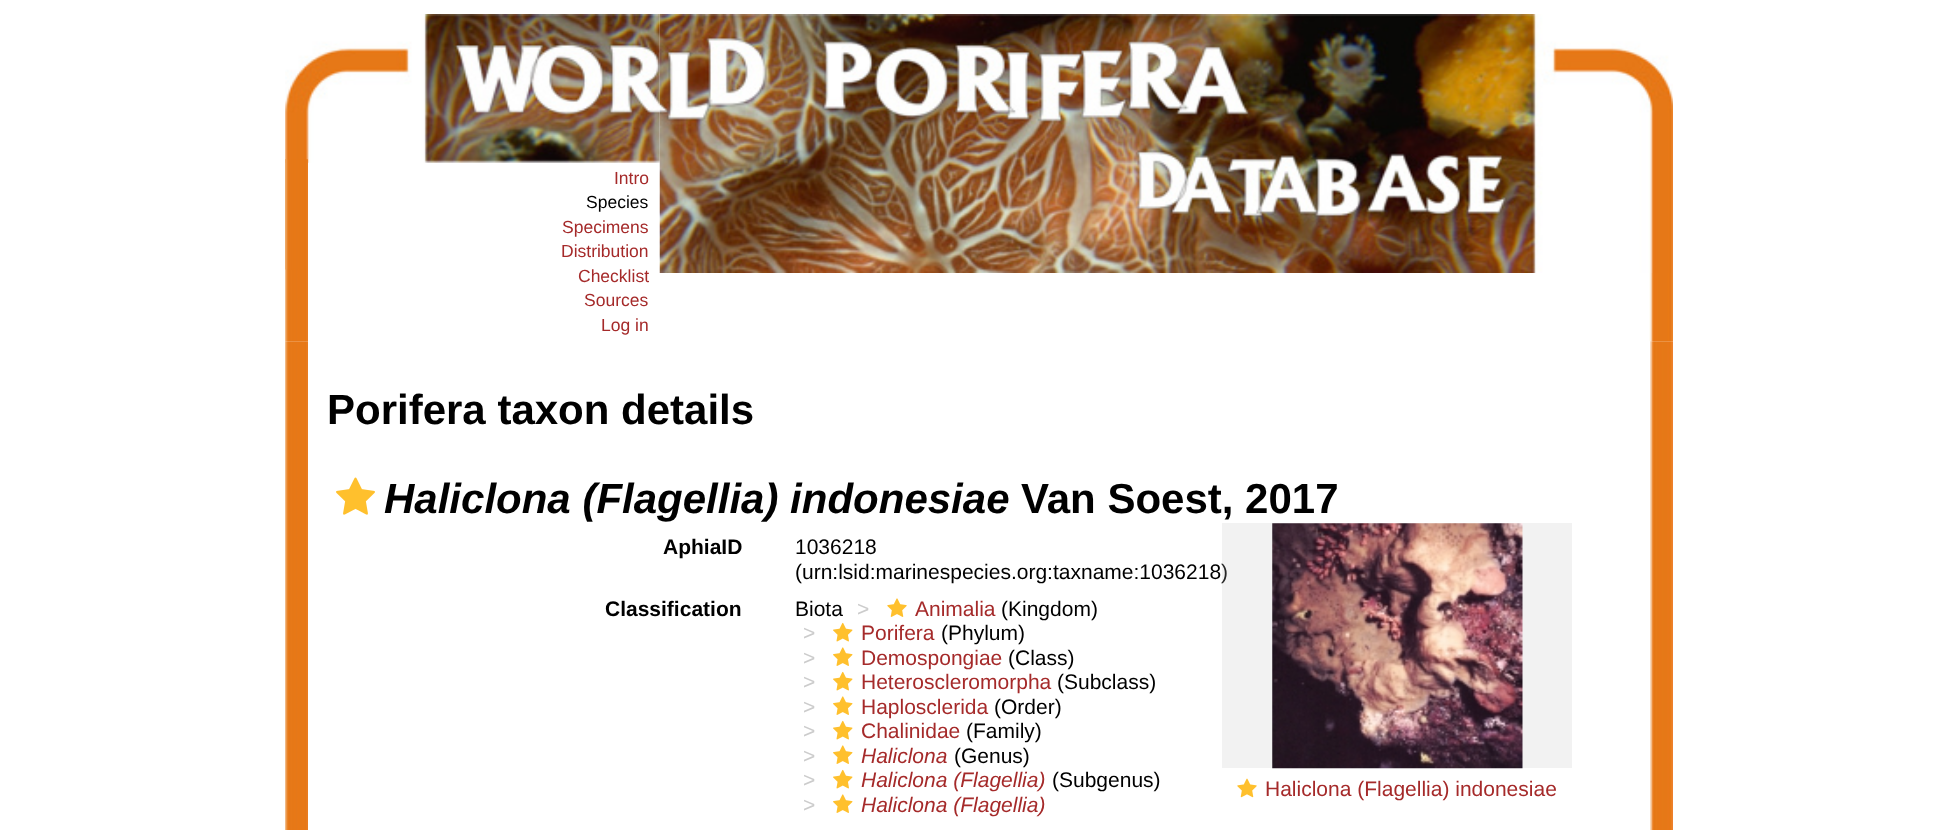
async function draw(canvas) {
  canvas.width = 1958
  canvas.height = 830
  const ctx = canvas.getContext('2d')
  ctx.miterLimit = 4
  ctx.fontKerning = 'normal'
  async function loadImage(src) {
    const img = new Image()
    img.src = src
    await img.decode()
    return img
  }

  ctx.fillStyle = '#fff'
  ctx.fillRect(0, 0, 1958, 830)
  ctx.drawImage(await loadImage('image3.png'), 285, 159, 23, 183)
  ctx.drawImage(await loadImage('image0.png'), 285, 14, 375, 149)
  ctx.drawImage(await loadImage('image1.png'), 1649, 273, 24, 69)
  ctx.drawImage(await loadImage('image2.png'), 659, 14, 1014, 259)
  ctx.drawImage(await loadImage('image4.png'), 285, 159, 23, 111)
  ctx.font = '17.5px Liberation Sans'
  ctx.fillStyle = '#a52a2a'
  ctx.fillText('Intro', 614, 184)
  ctx.fillStyle = '#000'
  ctx.fillText('Species', 586, 208)
  ctx.fillStyle = '#a52a2a'
  ctx.fillText('Specimens', 562, 233)
  ctx.fillText('Distribution', 561, 257)
  ctx.fillText('Checklist', 578, 282)
  ctx.fillText('Sources', 584, 306)
  ctx.fillText('Log in', 601, 331)
  ctx.drawImage(await loadImage('image5.png'), 285, 341, 23, 489)
  ctx.font = 'bold 42px Liberation Sans'
  ctx.fillStyle = '#000'
  ctx.fillText('Porifera taxon details', 327, 424)
  ctx.drawImage(await loadImage('image6.png'), 336, 477, 39, 38)
  ctx.font = 'italic bold 42px Liberation Sans'
  ctx.fillText('Haliclona (Flagellia) indonesiae', 384, 513)
  ctx.font = 'bold 42px Liberation Sans'
  ctx.fillText('Van Soest, 2017', 1021, 513)
  ctx.font = 'bold 21px Liberation Sans'
  ctx.fillText('AphiaID', 663, 554)
  ctx.font = '21px Liberation Sans'
  ctx.fillText('1036218', 795, 554)
  ctx.fillText('(urn:lsid:marinespecies.org:taxname:1036218)', 795, 579)
  ctx.font = 'bold 21px Liberation Sans'
  ctx.fillText('Classification', 605, 616)
  ctx.font = '21px Liberation Sans'
  ctx.fillText('Biota', 795, 616)
  ctx.fillStyle = '#ccc'
  ctx.fillText('>', 857, 616)
  ctx.drawImage(await loadImage('image7.png'), 887, 598, 20, 19)
  ctx.fillStyle = '#a52a2a'
  ctx.fillText('Animalia', 915, 616)
  ctx.fillStyle = '#000'
  ctx.fillText('(Kingdom)', 1001, 616)
  ctx.fillStyle = '#ccc'
  ctx.fillText('>', 803, 640)
  ctx.drawImage(await loadImage('image8.png'), 833, 622, 20, 20)
  ctx.fillStyle = '#a52a2a'
  ctx.fillText('Porifera', 861, 640)
  ctx.fillStyle = '#000'
  ctx.fillText('(Phylum)', 941, 640)
  ctx.fillStyle = '#ccc'
  ctx.fillText('>', 803, 665)
  ctx.drawImage(await loadImage('image9.png'), 833, 647, 20, 19)
  ctx.fillStyle = '#a52a2a'
  ctx.fillText('Demospongiae', 861, 665)
  ctx.fillStyle = '#000'
  ctx.fillText('(Class)', 1008, 665)
  ctx.fillStyle = '#ccc'
  ctx.fillText('>', 803, 689)
  ctx.drawImage(await loadImage('image8.png'), 833, 671, 20, 20)
  ctx.fillStyle = '#a52a2a'
  ctx.fillText('Heteroscleromorpha', 861, 689)
  ctx.fillStyle = '#000'
  ctx.fillText('(Subclass)', 1057, 689)
  ctx.fillStyle = '#ccc'
  ctx.fillText('>', 803, 714)
  ctx.drawImage(await loadImage('image9.png'), 833, 696, 20, 19)
  ctx.fillStyle = '#a52a2a'
  ctx.fillText('Haplosclerida', 861, 714)
  ctx.fillStyle = '#000'
  ctx.fillText('(Order)', 994, 714)
  ctx.fillStyle = '#ccc'
  ctx.fillText('>', 803, 738)
  ctx.drawImage(await loadImage('image8.png'), 833, 720, 20, 20)
  ctx.fillStyle = '#a52a2a'
  ctx.fillText('Chalinidae', 861, 738)
  ctx.fillStyle = '#000'
  ctx.fillText('(Family)', 966, 738)
  ctx.fillStyle = '#ccc'
  ctx.fillText('>', 803, 763)
  ctx.drawImage(await loadImage('image9.png'), 833, 745, 20, 19)
  ctx.font = 'italic 21px Liberation Sans'
  ctx.fillStyle = '#a52a2a'
  ctx.fillText('Haliclona', 861, 763)
  ctx.font = '21px Liberation Sans'
  ctx.fillStyle = '#000'
  ctx.fillText('(Genus)', 954, 763)
  ctx.fillStyle = '#ccc'
  ctx.fillText('>', 803, 787)
  ctx.drawImage(await loadImage('image8.png'), 833, 769, 20, 20)
  ctx.font = 'italic 21px Liberation Sans'
  ctx.fillStyle = '#a52a2a'
  ctx.fillText('Haliclona (Flagellia)', 861, 787)
  ctx.font = '21px Liberation Sans'
  ctx.fillStyle = '#000'
  ctx.fillText('(Subgenus)', 1052, 787)
  ctx.fillStyle = '#ccc'
  ctx.fillText('>', 803, 812)
  ctx.drawImage(await loadImage('image9.png'), 833, 794, 20, 19)
  ctx.font = 'italic 21px Liberation Sans'
  ctx.fillStyle = '#a52a2a'
  ctx.fillText('Haliclona (Flagellia)', 861, 812)
  ctx.fillStyle = '#bfbfbf33'
  ctx.fillRect(1222, 523, 350, 245)
  ctx.drawImage(await loadImage('image10.png'), 1272, 523, 251, 246)
  ctx.drawImage(await loadImage('image11.png'), 1237, 778, 20, 20)
  ctx.font = '21px Liberation Sans'
  ctx.fillStyle = '#a52a2a'
  ctx.fillText('Haliclona (Flagellia) indonesiae', 1265, 796)
  ctx.drawImage(await loadImage('image12.png'), 1650, 341, 23, 489)
}

draw(document.querySelector('canvas'))
